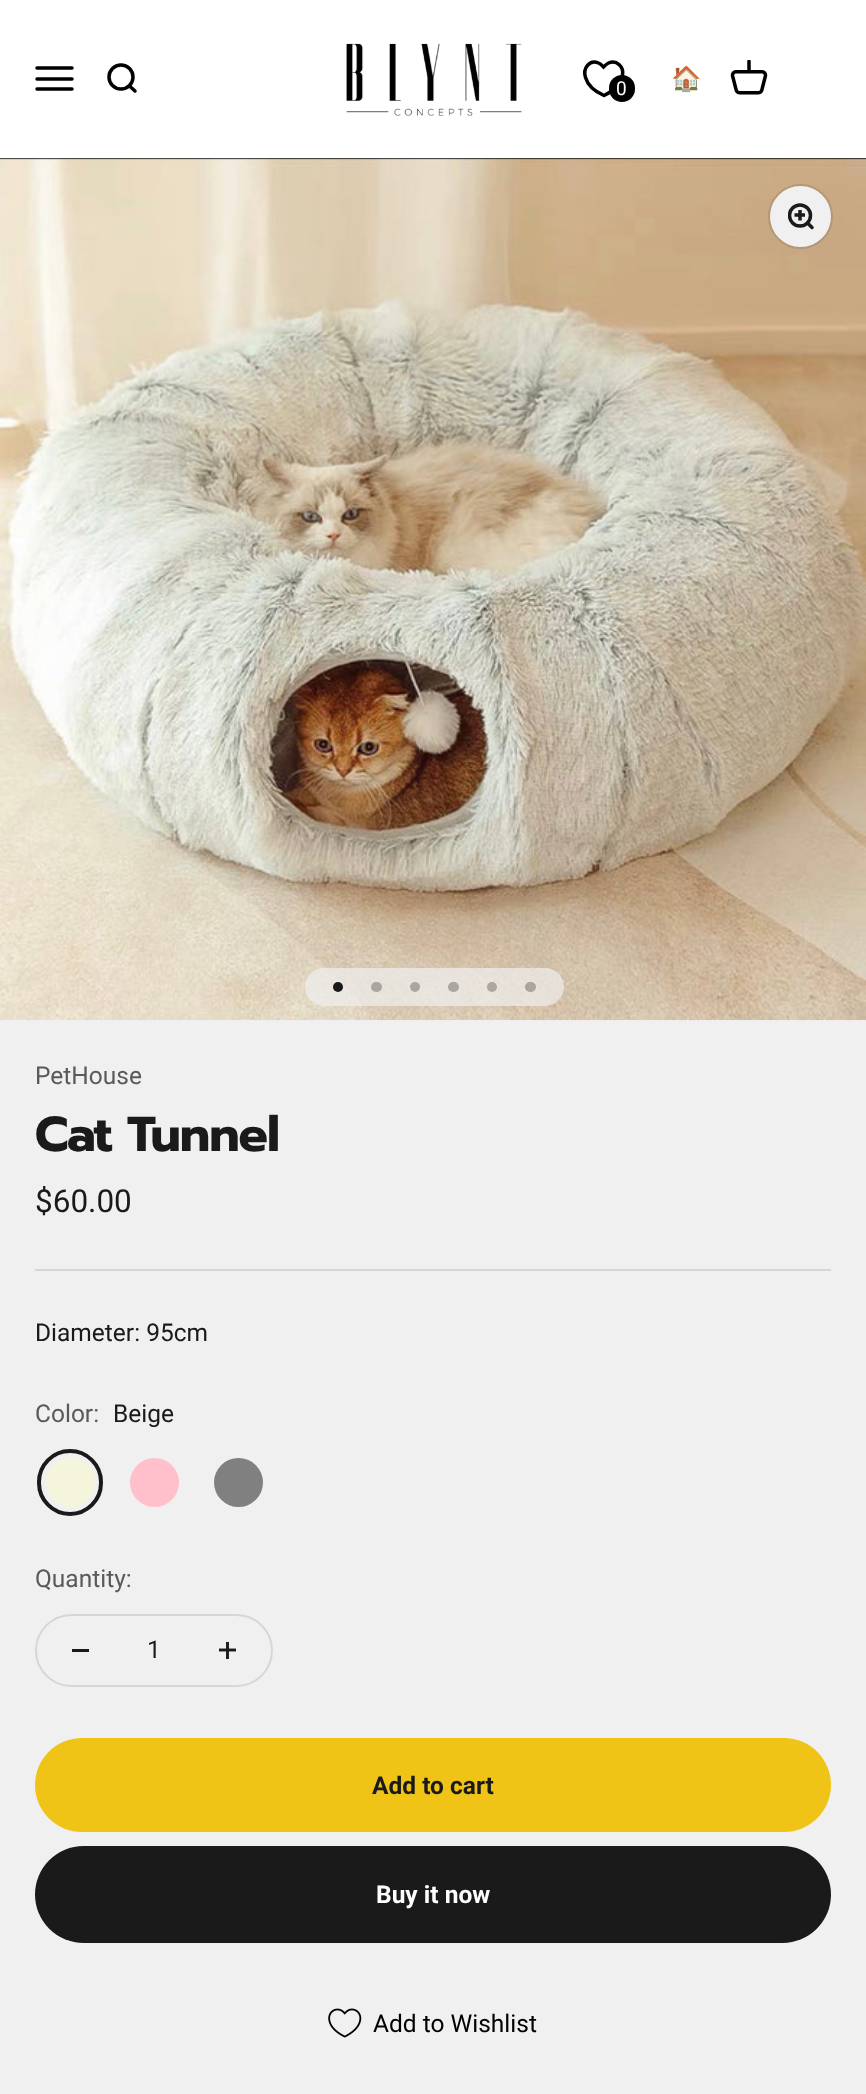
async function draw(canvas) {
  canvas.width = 866
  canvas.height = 2094
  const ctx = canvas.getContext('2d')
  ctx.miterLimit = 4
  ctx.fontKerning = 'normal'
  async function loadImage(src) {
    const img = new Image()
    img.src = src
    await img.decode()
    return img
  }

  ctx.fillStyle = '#f0f0f0'
  ctx.fillRect(0, 0, 866, 2094)
  ctx.fillStyle = '#fff'
  ctx.fillRect(0, 0, 866, 158)
  ctx.beginPath()
  ctx.moveTo(37, 68)
  ctx.lineTo(72, 68)
  ctx.moveTo(37, 79)
  ctx.lineTo(72, 79)
  ctx.moveTo(37, 89)
  ctx.lineTo(72, 89)
  ctx.strokeStyle = '#000'
  ctx.lineWidth = 3.5
  ctx.lineCap = 'round'
  ctx.stroke()
  ctx.beginPath()
  ctx.arc(121, 77, 12, 0, 2 * Math.PI)
  ctx.stroke()
  ctx.beginPath()
  ctx.moveTo(129.5, 86)
  ctx.lineTo(135, 91)
  ctx.lineJoin = 'round'
  ctx.stroke()
  ctx.drawImage(await loadImage('image0.png'), 346, 43, 176, 73)
  ctx.beginPath()
  ctx.moveTo(604, 95.5)
  ctx.bezierCurveTo(596, 92, 588, 86, 585.5, 77.5)
  ctx.bezierCurveTo(582.5, 68.5, 589.5, 59, 598.5, 63)
  ctx.bezierCurveTo(601, 64, 602, 65.5, 603.5, 67)
  ctx.bezierCurveTo(605, 65.5, 606.5, 64, 608.5, 63)
  ctx.bezierCurveTo(617, 59.5, 624, 67, 622.5, 75)
  ctx.bezierCurveTo(621.5, 84.5, 612, 91.5, 604, 95.5)
  ctx.closePath()
  ctx.lineCap = 'butt'
  ctx.lineJoin = 'miter'
  ctx.stroke()
  ctx.fillStyle = '#000'
  ctx.beginPath()
  ctx.roundRect(609, 75, 26, 27, 13)
  ctx.fill()
  ctx.font = '19px Roboto'
  ctx.fillStyle = '#fff'
  ctx.fillText('0', 616, 95)
  ctx.font = '24.5px Noto Color Emoji'
  ctx.fillStyle = '#000'
  ctx.fillText('🏠', 671, 87)
  ctx.drawImage(await loadImage('image1.png'), 730, 60, 38, 35)
  ctx.drawImage(await loadImage('image2.png'), 0, 158, 866, 863)
  ctx.beginPath()
  ctx.arc(800.5, 216.5, 31.5, 0, 2 * Math.PI)
  ctx.strokeStyle = '#1a1a1a1f'
  ctx.lineWidth = 2
  ctx.stroke()
  ctx.fillStyle = '#f0f0f0'
  ctx.beginPath()
  ctx.arc(800.5, 216.5, 30.5, 0, 2 * Math.PI)
  ctx.fill()
  ctx.save()
  ctx.beginPath()
  ctx.rect(788, 203, 26, 26)
  ctx.clip()
  ctx.beginPath()
  ctx.arc(800, 215.5, 10.5, 0, 2 * Math.PI)
  ctx.strokeStyle = '#1a1a1a'
  ctx.lineWidth = 3.5
  ctx.stroke()
  ctx.restore()
  ctx.beginPath()
  ctx.moveTo(807.5, 223)
  ctx.lineTo(812, 227.5)
  ctx.strokeStyle = '#1a1a1a'
  ctx.lineWidth = 3.5
  ctx.lineCap = 'round'
  ctx.lineJoin = 'round'
  ctx.stroke()
  ctx.beginPath()
  ctx.moveTo(800, 210)
  ctx.lineTo(800, 220.5)
  ctx.moveTo(794.5, 215)
  ctx.lineTo(805, 215)
  ctx.lineCap = 'butt'
  ctx.lineJoin = 'miter'
  ctx.stroke()
  ctx.fillStyle = '#f0f0f0b3'
  ctx.beginPath()
  ctx.roundRect(305, 968, 259, 38, 19)
  ctx.fill()
  ctx.fillStyle = '#1a1a1a'
  ctx.beginPath()
  ctx.arc(338, 987, 5, 0, 2 * Math.PI)
  ctx.fill()
  ctx.fillStyle = '#1a1a1a4d'
  ctx.beginPath()
  ctx.roundRect(371, 982, 11, 10, 5)
  ctx.fill()
  ctx.beginPath()
  ctx.arc(415, 987, 5, 0, 2 * Math.PI)
  ctx.fill()
  ctx.beginPath()
  ctx.roundRect(448, 982, 11, 10, 5)
  ctx.fill()
  ctx.beginPath()
  ctx.arc(492, 987, 5, 0, 2 * Math.PI)
  ctx.fill()
  ctx.beginPath()
  ctx.roundRect(525, 982, 11, 10, 5)
  ctx.fill()
  ctx.font = '24.5px Roboto'
  ctx.fillStyle = '#5a5a5a'
  ctx.fillText('PetHouse', 35, 1084)
  ctx.letterSpacing = '-1px'
  ctx.font = 'bold 49px Prompt'
  ctx.fillStyle = '#1a1a1a'
  ctx.fillText('Cat Tunnel', 35, 1151)
  ctx.letterSpacing = '0px'
  ctx.font = '31.5px Roboto'
  ctx.fillText('$60.00', 35, 1212)
  ctx.fillStyle = '#d6d6d6'
  ctx.fillRect(35, 1269, 796, 2)
  ctx.font = '24.5px Roboto'
  ctx.fillStyle = '#1a1a1a'
  ctx.fillText('Diameter: 95cm', 35, 1341)
  ctx.fillStyle = '#5a5a5a'
  ctx.fillText('Color:', 35, 1422)
  ctx.fillStyle = '#1a1a1a'
  ctx.fillText('Beige', 113, 1422)
  ctx.fillStyle = '#f5f5dc'
  ctx.beginPath()
  ctx.arc(70.5, 1482.5, 24.5, 0, 2 * Math.PI)
  ctx.fill()
  ctx.beginPath()
  ctx.roundRect(39, 1451, 62, 63, 31)
  ctx.lineWidth = 4
  ctx.stroke()
  ctx.fillStyle = '#ffc0cb'
  ctx.beginPath()
  ctx.arc(154.5, 1482.5, 24.5, 0, 2 * Math.PI)
  ctx.fill()
  ctx.fillStyle = '#808080'
  ctx.beginPath()
  ctx.arc(238.5, 1482.5, 24.5, 0, 2 * Math.PI)
  ctx.fill()
  ctx.fillStyle = '#5a5a5a'
  ctx.fillText('Quantity:', 35, 1587)
  ctx.beginPath()
  ctx.roundRect(36, 1615, 236, 71, 35.5)
  ctx.strokeStyle = '#d6d6d6'
  ctx.lineWidth = 2
  ctx.stroke()
  ctx.fillStyle = '#1a1a1a'
  ctx.fillRect(72, 1649, 17, 3)
  ctx.fillText('1', 147, 1658)
  ctx.fillStyle = '#212121'
  ctx.fillRect(226, 1642, 3, 17)
  ctx.beginPath()
  ctx.moveTo(219, 1650)
  ctx.lineTo(236, 1650)
  ctx.strokeStyle = '#1a1a1a'
  ctx.lineWidth = 2.9
  ctx.stroke()
  ctx.fillStyle = '#f0c417'
  ctx.beginPath()
  ctx.roundRect(35, 1738, 796, 94, 47)
  ctx.fill()
  ctx.font = 'bold 24.5px Roboto'
  ctx.fillStyle = '#1a1a1a'
  ctx.fillText('Add to cart', 372, 1794)
  ctx.beginPath()
  ctx.roundRect(35, 1846, 796, 97, 48.5)
  ctx.fill()
  ctx.fillStyle = '#fff'
  ctx.fillText('Buy it now', 376, 1903)
  ctx.drawImage(await loadImage('image3.png'), 328, 2008, 34, 30)
  ctx.font = '24.5px Roboto'
  ctx.fillStyle = '#000'
  ctx.fillText('Add to Wishlist', 373, 2032)
}

draw(document.querySelector('canvas'))
